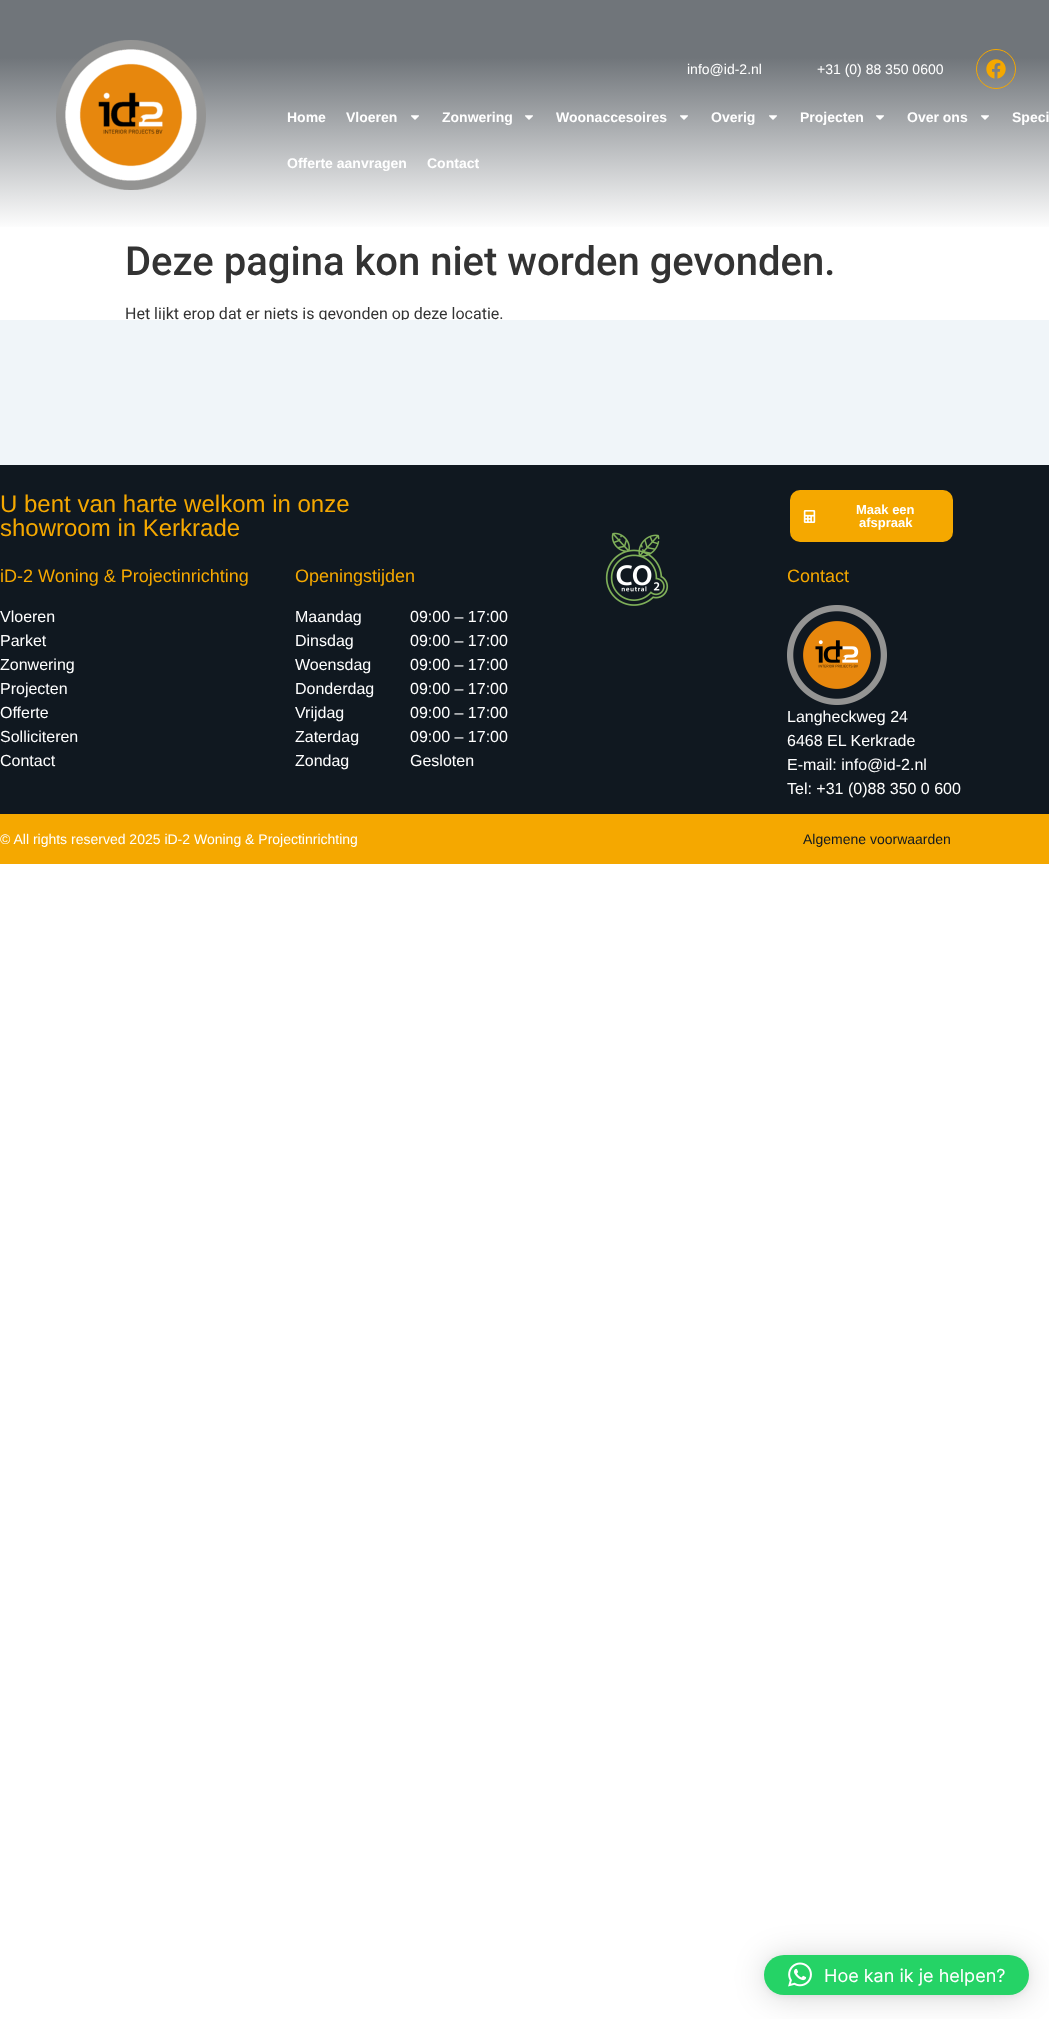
async function draw(canvas) {
  canvas.width = 1049
  canvas.height = 2019
  const ctx = canvas.getContext('2d')
  ctx.miterLimit = 4
  ctx.fontKerning = 'normal'
  async function loadImage(src) {
    const img = new Image()
    img.src = src
    await img.decode()
    return img
  }
  let gradient

  ctx.fillStyle = '#fff'
  ctx.fillRect(0, 0, 1049, 2019)
  gradient = ctx.createLinearGradient(525, 0, 525, 230)
  gradient.addColorStop(0.25, '#70757a')
  gradient.addColorStop(1, '#fff')
  ctx.fillStyle = gradient
  ctx.fillRect(0, 0, 1049, 227)
  ctx.drawImage(await loadImage('image0.png'), 56, 40, 150, 150)
  ctx.font = '14px Liberation Sans'
  ctx.fillStyle = '#fff'
  ctx.fillText('info@id-2.nl', 687, 74)
  ctx.fillText('+31 (0) 88 350 0600', 817, 74)
  ctx.beginPath()
  ctx.arc(996, 69, 19.5, 0, 2 * Math.PI)
  ctx.strokeStyle = '#f5a800'
  ctx.stroke()
  ctx.drawImage(await loadImage('image1.png'), 986, 59, 20, 20)
  ctx.font = 'bold 14px Liberation Sans'
  ctx.fillText('Home', 287, 122)
  ctx.fillText('Vloeren', 346, 122)
  ctx.drawImage(await loadImage('image2.png'), 411, 115, 8, 5)
  ctx.fillText('Zonwering', 442, 122)
  ctx.drawImage(await loadImage('image2.png'), 525, 115, 8, 5)
  ctx.fillText('Woonaccesoires', 556, 122)
  ctx.drawImage(await loadImage('image2.png'), 680, 115, 8, 5)
  ctx.fillText('Overig', 711, 122)
  ctx.drawImage(await loadImage('image2.png'), 769, 115, 8, 5)
  ctx.fillText('Projecten', 800, 122)
  ctx.drawImage(await loadImage('image2.png'), 876, 115, 8, 5)
  ctx.fillText('Over ons', 907, 122)
  ctx.drawImage(await loadImage('image2.png'), 981, 115, 8, 5)
  ctx.fillText('Speci', 1012, 122)
  ctx.fillText('Offerte aanvragen', 287, 168)
  ctx.fillText('Contact', 427, 168)
  ctx.font = '500 40px Roboto'
  ctx.fillStyle = '#333'
  ctx.fillText('Deze pagina kon niet worden gevonden.', 125, 275)
  ctx.font = '16px Roboto'
  ctx.fillText('Het lijkt erop dat er niets is gevonden op deze locatie.', 125, 319)
  ctx.fillStyle = '#f0f5f9'
  ctx.fillRect(0, 320, 1049, 145)
  ctx.fillStyle = '#101820'
  ctx.fillRect(0, 465, 1049, 349)
  ctx.font = '24px Liberation Sans'
  ctx.fillStyle = '#f5a800'
  ctx.fillText('U bent van harte welkom in onze', 0, 512)
  ctx.fillText('showroom in Kerkrade', 0, 536)
  ctx.beginPath()
  ctx.roundRect(790, 490, 163, 52, 10)
  ctx.fill()
  ctx.drawImage(await loadImage('image3.png'), 803, 510, 13, 13)
  ctx.font = 'bold 13px Liberation Sans'
  ctx.fillStyle = '#fff'
  ctx.fillText('Maak een', 856, 514)
  ctx.fillText('afspraak', 859, 527)
  ctx.font = '18px Liberation Sans'
  ctx.fillStyle = '#f5a800'
  ctx.fillText('iD-2 Woning & Projectinrichting', 0, 582)
  ctx.font = '16px Liberation Sans'
  ctx.fillStyle = '#fff'
  ctx.fillText('Vloeren', 0, 622)
  ctx.fillText('Parket', 0, 646)
  ctx.fillText('Zonwering', 0, 670)
  ctx.fillText('Projecten', 0, 694)
  ctx.fillText('Offerte', 0, 718)
  ctx.fillText('Solliciteren', 0, 742)
  ctx.fillText('Contact', 0, 766)
  ctx.font = '18px Liberation Sans'
  ctx.fillStyle = '#f5a800'
  ctx.fillText('Openingstijden', 295, 582)
  ctx.font = '16px Liberation Sans'
  ctx.fillStyle = '#fff'
  ctx.fillText('Maandag', 295, 622)
  ctx.fillText('Dinsdag', 295, 646)
  ctx.fillText('Woensdag', 295, 670)
  ctx.fillText('Donderdag', 295, 694)
  ctx.fillText('Vrijdag', 295, 718)
  ctx.fillText('Zaterdag', 295, 742)
  ctx.fillText('Zondag', 295, 766)
  ctx.fillText('09:00 – 17:00', 410, 622)
  ctx.fillText('09:00 – 17:00', 410, 646)
  ctx.fillText('09:00 – 17:00', 410, 670)
  ctx.fillText('09:00 – 17:00', 410, 694)
  ctx.fillText('09:00 – 17:00', 410, 718)
  ctx.fillText('09:00 – 17:00', 410, 742)
  ctx.fillText('Gesloten', 410, 766)
  ctx.drawImage(await loadImage('image4.png'), 605, 532, 64, 74)
  ctx.font = '18px Liberation Sans'
  ctx.fillStyle = '#f5a800'
  ctx.fillText('Contact', 787, 582)
  ctx.drawImage(await loadImage('image5.png'), 787, 605, 100, 100)
  ctx.font = '16px Liberation Sans'
  ctx.fillStyle = '#fff'
  ctx.fillText('Langheckweg 24', 787, 722)
  ctx.fillText('6468 EL Kerkrade', 787, 746)
  ctx.fillText('E-mail: info@id-2.nl', 787, 770)
  ctx.fillText('Tel: +31 (0)88 350 0 600', 787, 794)
  ctx.fillStyle = '#f5a800'
  ctx.fillRect(0, 814, 1049, 50)
  ctx.font = '14px Liberation Sans'
  ctx.fillStyle = '#fff'
  ctx.fillText('© All rights reserved 2025 iD-2 Woning & Projectinrichting', 0, 844)
  ctx.fillStyle = '#101820'
  ctx.fillText('Algemene voorwaarden', 803, 844)
  ctx.fillStyle = '#00000029'
  ctx.filter = 'blur(16px)'
  ctx.beginPath()
  ctx.roundRect(764, 1957, 265, 40, 20)
  ctx.fill()
  ctx.filter = 'none'
  ctx.fillStyle = '#0000000f'
  ctx.filter = 'blur(3px)'
  ctx.beginPath()
  ctx.roundRect(764, 1956, 265, 40, 20)
  ctx.fill()
  ctx.filter = 'none'
  ctx.fillStyle = '#25d366'
  ctx.beginPath()
  ctx.roundRect(764, 1955, 265, 40, 20)
  ctx.fill()
  ctx.drawImage(await loadImage('image6.png'), 788, 1962, 24, 25)
  ctx.font = '18px Inter'
  ctx.fillStyle = '#fff'
  ctx.fillText('Hoe kan ik je helpen?', 824, 1982)
}

draw(document.querySelector('canvas'))
